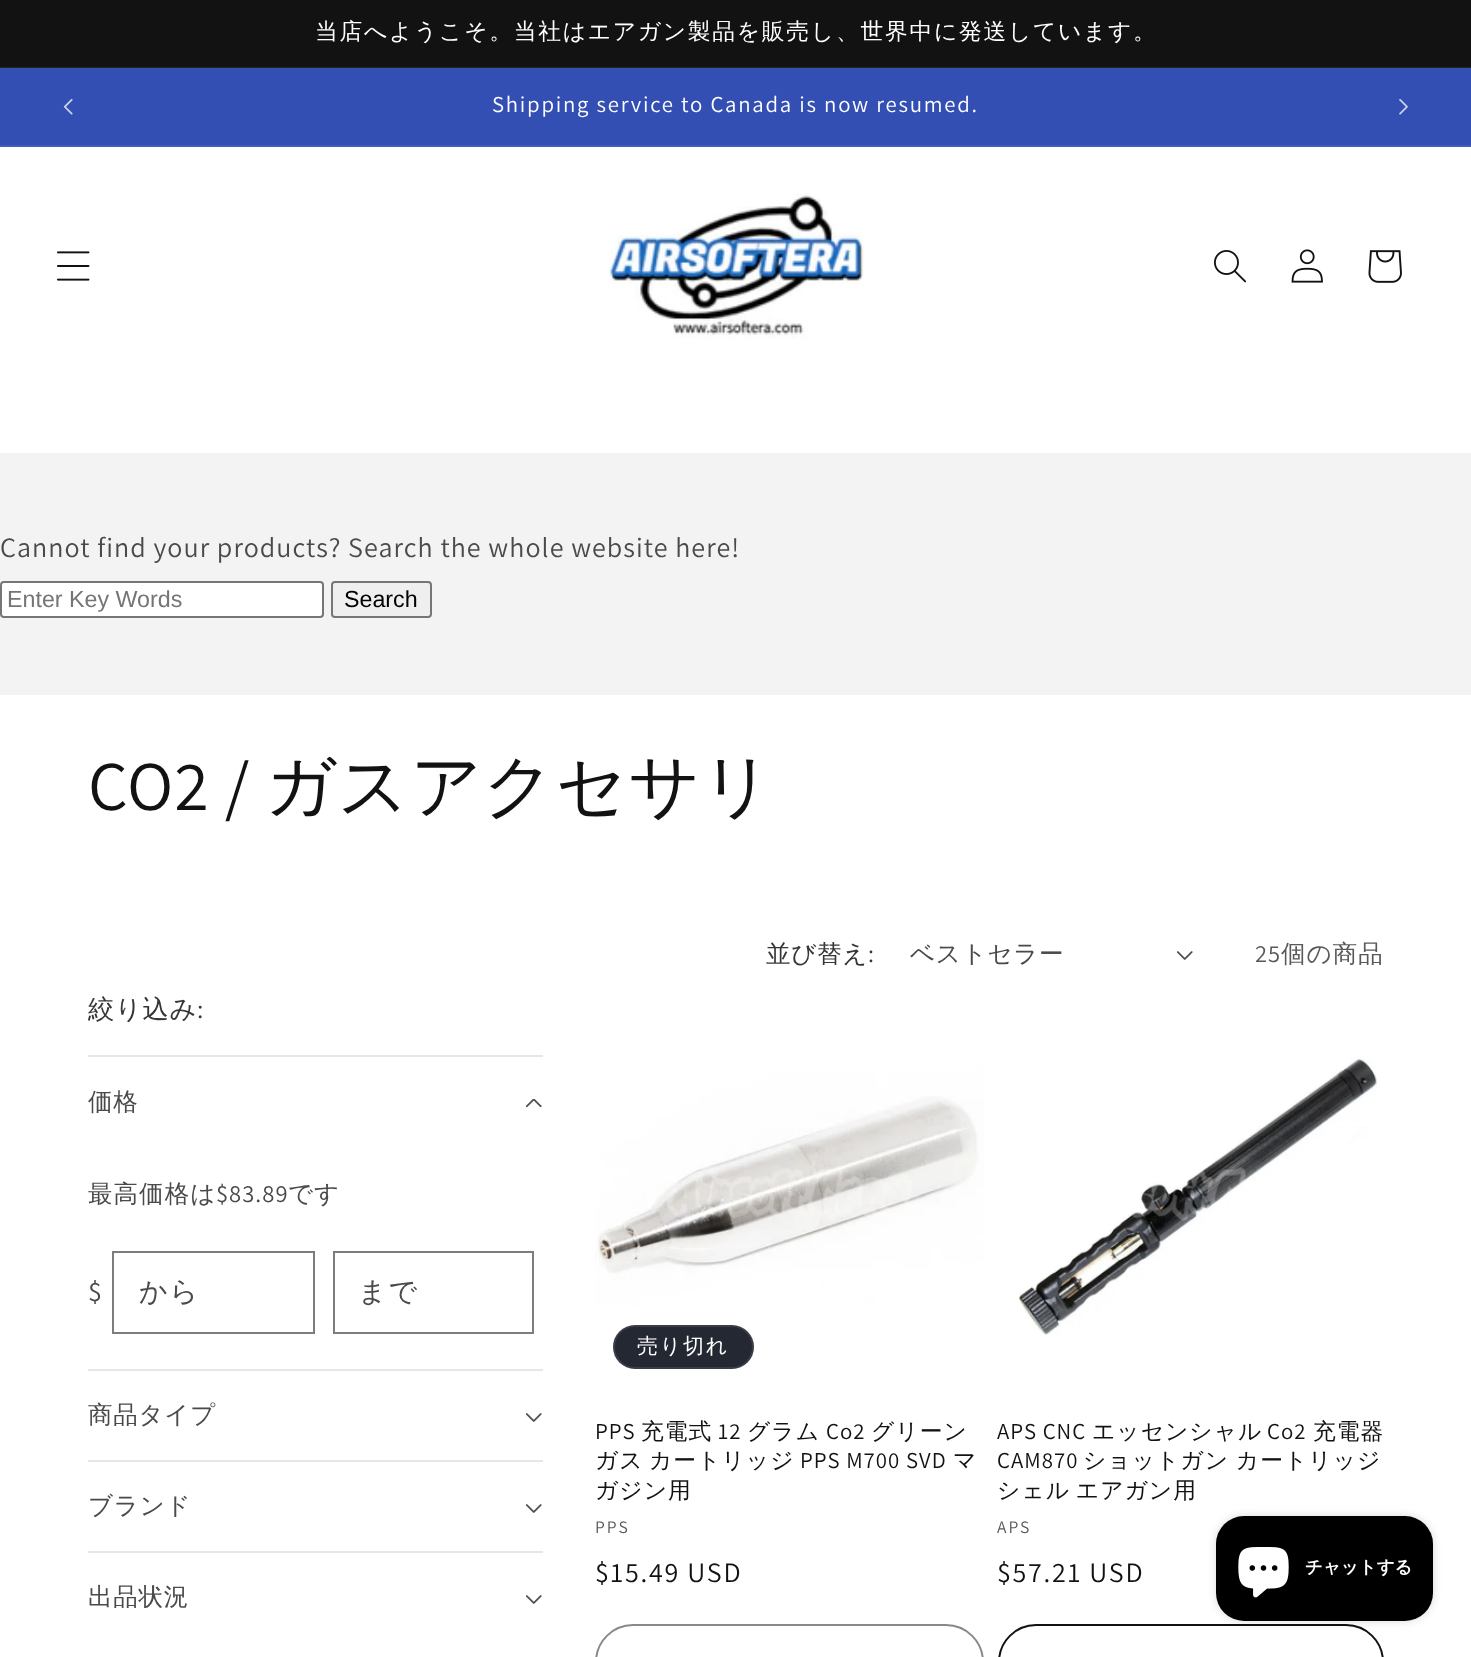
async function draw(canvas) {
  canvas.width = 1471
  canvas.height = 1657
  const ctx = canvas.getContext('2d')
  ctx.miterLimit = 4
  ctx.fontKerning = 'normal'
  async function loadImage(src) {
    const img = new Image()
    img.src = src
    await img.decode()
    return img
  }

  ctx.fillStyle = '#fff'
  ctx.fillRect(0, 0, 1471, 1657)
  ctx.fillStyle = '#121212'
  ctx.fillRect(0, 0, 1471, 67)
  ctx.fillStyle = '#252525'
  ctx.fillRect(0, 67, 1471, 1)
  ctx.letterSpacing = '1.75px'
  ctx.font = '500 22.75px WenQuanYi Zen Hei'
  ctx.fillStyle = '#fff'
  ctx.fillText('当店へようこそ。当社はエアガン製品を販売し、世界中に発送しています。', 315, 39)
  ctx.fillStyle = '#334fb4'
  ctx.fillRect(0, 68, 1471, 77)
  ctx.fillStyle = '#435dba'
  ctx.fillRect(0, 145, 1471, 2)
  ctx.drawImage(await loadImage('image0.png'), 63, 98, 10, 17)
  ctx.font = '22.75px Assistant'
  ctx.fillStyle = '#fff'
  ctx.fillText('Shipping service to Canada is now resumed.', 492, 112)
  ctx.drawImage(await loadImage('image1.png'), 1399, 99, 9, 16)
  ctx.drawImage(await loadImage('image2.png'), 57, 251, 33, 30)
  ctx.drawImage(await loadImage('image3.png'), 609, 193, 255, 146)
  ctx.drawImage(await loadImage('image4.png'), 1214, 250, 32, 33)
  ctx.drawImage(await loadImage('image5.png'), 1291, 249, 32, 34)
  ctx.drawImage(await loadImage('image6.png'), 1368, 250, 34, 33)
  ctx.fillStyle = '#f3f3f3'
  ctx.fillRect(0, 453, 1471, 242)
  ctx.letterSpacing = '1.05px'
  ctx.font = '28px Assistant'
  ctx.fillStyle = '#4a4a4a'
  ctx.fillText('Cannot find your products? Search the whole website here!', 0, 557)
  ctx.fillStyle = '#fff'
  ctx.beginPath()
  ctx.roundRect(1, 582, 322, 35, 3)
  ctx.fill()
  ctx.strokeStyle = '#767676'
  ctx.lineWidth = 2
  ctx.stroke()
  ctx.letterSpacing = '0px'
  ctx.font = '23.25px Liberation Sans'
  ctx.fillStyle = '#757575'
  ctx.fillText('Enter Key Words', 7, 607)
  ctx.fillStyle = '#efefef'
  ctx.beginPath()
  ctx.roundRect(332, 582, 99, 35, 3)
  ctx.fill()
  ctx.stroke()
  ctx.fillStyle = '#000'
  ctx.fillText('Search', 344, 607)
  ctx.letterSpacing = '1.05px'
  ctx.font = '70px Assistant'
  ctx.fillStyle = '#121212'
  ctx.fillText('CO2 /', 88, 810)
  ctx.font = '500 70px WenQuanYi Zen Hei'
  ctx.fillText('ガスアクセサリ', 265, 810)
  ctx.letterSpacing = '0.75px'
  ctx.font = '500 24.5px WenQuanYi Zen Hei'
  ctx.fillStyle = '#363636'
  ctx.fillText('並び替え', 766, 962)
  ctx.font = '24.5px Assistant'
  ctx.fillText(':', 868, 962)
  ctx.font = '500 24.5px WenQuanYi Zen Hei'
  ctx.fillStyle = '#4a4a4a'
  ctx.fillText('ベストセラー', 910, 962)
  ctx.drawImage(await loadImage('image7.png'), 1177, 951, 16, 9)
  ctx.letterSpacing = '1.05px'
  ctx.font = '24.5px Assistant'
  ctx.fillStyle = '#595959'
  ctx.fillText('25', 1255, 962)
  ctx.font = '500 24.5px WenQuanYi Zen Hei'
  ctx.fillText('個の商品', 1281, 962)
  ctx.letterSpacing = '0.75px'
  ctx.font = '500 26.25px WenQuanYi Zen Hei'
  ctx.fillStyle = '#363636'
  ctx.fillText('絞り込み', 88, 1018)
  ctx.font = '26.25px Assistant'
  ctx.fillText(':', 197, 1018)
  ctx.fillStyle = '#e7e7e7'
  ctx.fillRect(88, 1055, 455, 2)
  ctx.font = '500 24.5px WenQuanYi Zen Hei'
  ctx.fillStyle = '#4a4a4a'
  ctx.fillText('価格', 88, 1110)
  ctx.drawImage(await loadImage('image8.png'), 525, 1099, 17, 9)
  ctx.letterSpacing = '1.05px'
  ctx.fillText('最高価格は', 88, 1202)
  ctx.font = '24.5px Assistant'
  ctx.fillText('$83.89', 216, 1202)
  ctx.font = '500 24.5px WenQuanYi Zen Hei'
  ctx.fillText('です', 288, 1202)
  ctx.font = '28px Assistant'
  ctx.fillText('$', 88, 1301)
  ctx.strokeStyle = '#7d7d7d'
  ctx.strokeRect(113, 1252, 201, 81)
  ctx.letterSpacing = '1.75px'
  ctx.font = '500 28px WenQuanYi Zen Hei'
  ctx.fillText('から', 139, 1301)
  ctx.strokeRect(334, 1252, 199, 81)
  ctx.fillText('まで', 358, 1301)
  ctx.fillStyle = '#e7e7e7'
  ctx.fillRect(88, 1369, 455, 2)
  ctx.letterSpacing = '0.75px'
  ctx.font = '500 24.5px WenQuanYi Zen Hei'
  ctx.fillStyle = '#4a4a4a'
  ctx.fillText('商品タイプ', 88, 1423)
  ctx.drawImage(await loadImage('image7.png'), 526, 1413, 16, 9)
  ctx.fillStyle = '#e7e7e7'
  ctx.fillRect(88, 1460, 455, 2)
  ctx.fillStyle = '#4a4a4a'
  ctx.fillText('ブランド', 88, 1514)
  ctx.drawImage(await loadImage('image7.png'), 526, 1504, 16, 9)
  ctx.fillStyle = '#e7e7e7'
  ctx.fillRect(88, 1551, 455, 2)
  ctx.fillStyle = '#4a4a4a'
  ctx.fillText('出品状況', 88, 1605)
  ctx.drawImage(await loadImage('image7.png'), 526, 1595, 16, 9)
  ctx.drawImage(await loadImage('image9.png'), 595, 1001, 389, 387)
  ctx.fillStyle = '#242833'
  ctx.beginPath()
  ctx.roundRect(613, 1325, 141, 44, 22)
  ctx.fill()
  ctx.beginPath()
  ctx.roundRect(614, 1326, 139, 42, 21)
  ctx.strokeStyle = '#ffffff1a'
  ctx.stroke()
  ctx.letterSpacing = '1.75px'
  ctx.font = '500 21px WenQuanYi Zen Hei'
  ctx.fillStyle = '#fff'
  ctx.fillText('売り切れ', 637, 1353)
  ctx.letterSpacing = '1.05px'
  ctx.font = '22.75px Assistant'
  ctx.fillStyle = '#121212'
  ctx.fillText('PPS', 595, 1439)
  ctx.font = '500 22.75px WenQuanYi Zen Hei'
  ctx.fillText('充電式', 641, 1439)
  ctx.font = '22.75px Assistant'
  ctx.fillText('12', 718, 1439)
  ctx.font = '500 22.75px WenQuanYi Zen Hei'
  ctx.fillText('グラム', 747, 1439)
  ctx.font = '22.75px Assistant'
  ctx.fillText('Co2', 826, 1439)
  ctx.font = '500 22.75px WenQuanYi Zen Hei'
  ctx.fillText('グリーン', 871, 1439)
  ctx.fillText('ガス', 595, 1468)
  ctx.fillText('カートリッジ', 649, 1468)
  ctx.font = '22.75px Assistant'
  ctx.fillText('PPS M700 SVD', 800, 1468)
  ctx.font = '500 22.75px WenQuanYi Zen Hei'
  ctx.fillText('マ', 953, 1468)
  ctx.fillText('ガジン用', 595, 1498)
  ctx.letterSpacing = '2px'
  ctx.font = '17.5px Assistant'
  ctx.fillStyle = '#595959'
  ctx.fillText('PPS', 595, 1533)
  ctx.letterSpacing = '1.75px'
  ctx.font = '28px Assistant'
  ctx.fillStyle = '#121212'
  ctx.fillText('$15.49 USD', 595, 1582)
  ctx.beginPath()
  ctx.roundRect(596, 1625, 387, 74, 40)
  ctx.strokeStyle = '#898989'
  ctx.stroke()
  ctx.drawImage(await loadImage('image10.png'), 998, 1001, 386, 387)
  ctx.letterSpacing = '1.05px'
  ctx.font = '22.75px Assistant'
  ctx.fillText('APS CNC', 997, 1439)
  ctx.font = '500 22.75px WenQuanYi Zen Hei'
  ctx.fillText('エッセンシャル', 1092, 1439)
  ctx.font = '22.75px Assistant'
  ctx.fillText('Co2', 1267, 1439)
  ctx.font = '500 22.75px WenQuanYi Zen Hei'
  ctx.fillText('充電器', 1313, 1439)
  ctx.font = '22.75px Assistant'
  ctx.fillText('CAM870', 997, 1468)
  ctx.wordSpacing = '-1px'
  ctx.font = '500 22.75px WenQuanYi Zen Hei'
  ctx.fillText('ショットガン カートリッジ', 1083, 1468)
  ctx.wordSpacing = '-2px'
  ctx.fillText('シェル エアガン用', 997, 1498)
  ctx.letterSpacing = '2px'
  ctx.wordSpacing = '0px'
  ctx.font = '17.5px Assistant'
  ctx.fillStyle = '#595959'
  ctx.fillText('APS', 997, 1533)
  ctx.letterSpacing = '1.75px'
  ctx.font = '28px Assistant'
  ctx.fillStyle = '#121212'
  ctx.fillText('$57.21 USD', 997, 1582)
  ctx.beginPath()
  ctx.roundRect(999, 1625, 384, 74, 40)
  ctx.strokeStyle = '#121212'
  ctx.stroke()
  ctx.fillStyle = '#00000026'
  ctx.filter = 'blur(4.5px)'
  ctx.beginPath()
  ctx.roundRect(1216, 1516, 217, 105, 28)
  ctx.fill()
  ctx.filter = 'none'
  ctx.fillStyle = '#000'
  ctx.beginPath()
  ctx.roundRect(1216, 1516, 217, 105, 28)
  ctx.fill()
  ctx.drawImage(await loadImage('image11.png'), 1238, 1547, 51, 51)
  ctx.letterSpacing = '0px'
  ctx.font = 'bold 17.5px WenQuanYi Zen Hei'
  ctx.fillStyle = '#fff'
  ctx.fillText('チャットする', 1305, 1573)
}

draw(document.querySelector('canvas'))
